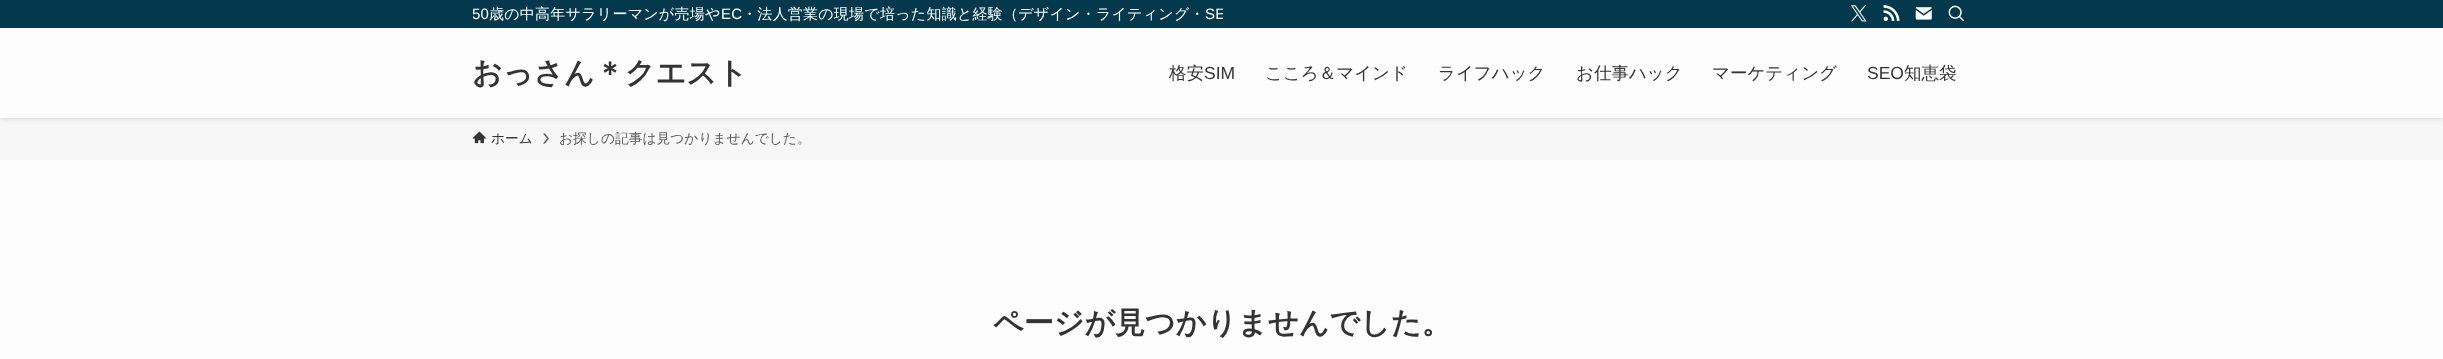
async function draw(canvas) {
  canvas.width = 2443
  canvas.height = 359
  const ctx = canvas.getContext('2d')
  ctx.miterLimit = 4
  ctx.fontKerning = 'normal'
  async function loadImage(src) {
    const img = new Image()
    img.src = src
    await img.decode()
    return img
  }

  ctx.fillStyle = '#fdfdfd'
  ctx.fillRect(0, 0, 2443, 359)
  ctx.fillStyle = '#f7f7f7'
  ctx.fillRect(0, 118, 2443, 42)
  ctx.fillStyle = '#0000001f'
  ctx.filter = 'blur(2.5px)'
  ctx.beginPath()
  ctx.rect(0, 1, 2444, 118)
  ctx.fill()
  ctx.filter = 'none'
  ctx.fillStyle = '#fdfdfd'
  ctx.fillRect(0, 28, 2443, 90)
  ctx.fillStyle = '#04384c'
  ctx.fillRect(0, 0, 2443, 28)
  ctx.save()
  ctx.beginPath()
  ctx.rect(473, 0, 750, 28)
  ctx.clip()
  ctx.letterSpacing = '0.25px'
  ctx.font = '15px Liberation Sans'
  ctx.fillStyle = '#fff'
  ctx.fillText('50', 472, 19)
  ctx.restore()
  ctx.letterSpacing = '0.25px'
  ctx.font = '500 15px WenQuanYi Zen Hei'
  ctx.fillStyle = '#fff'
  ctx.fillText('歳の中高年サラリーマンが売場や', 489, 19)
  ctx.font = '15px Liberation Sans'
  ctx.fillText('EC', 721, 19)
  ctx.font = '500 15px WenQuanYi Zen Hei'
  ctx.fillText('・法人営業の現場で培った知識と経験（デザイン・ライティング・', 742, 19)
  ctx.save()
  ctx.beginPath()
  ctx.rect(473, 0, 750, 28)
  ctx.clip()
  ctx.font = '15px Liberation Sans'
  ctx.fillText('SE', 1205, 19)
  ctx.restore()
  ctx.drawImage(await loadImage('image0.png'), 1851, 5, 16, 17)
  ctx.drawImage(await loadImage('image1.png'), 1883, 5, 17, 16)
  ctx.drawImage(await loadImage('image2.png'), 1915, 7, 17, 13)
  ctx.drawImage(await loadImage('image3.png'), 1948, 5, 16, 16)
  ctx.letterSpacing = '0px'
  ctx.font = 'bold 30px WenQuanYi Zen Hei'
  ctx.fillStyle = '#333'
  ctx.fillText('おっさん＊クエスト', 472, 83)
  ctx.font = '500 17.5px WenQuanYi Zen Hei'
  ctx.fillText('格安', 1169, 79)
  ctx.font = '17.5px Liberation Sans'
  ctx.fillText('SIM', 1204, 79)
  ctx.font = '500 17.5px WenQuanYi Zen Hei'
  ctx.fillText('こころ＆マインド', 1265, 79)
  ctx.fillText('ライフハック', 1438, 79)
  ctx.fillText('お仕事ハック', 1576, 79)
  ctx.fillText('マーケティング', 1712, 79)
  ctx.font = '17.5px Liberation Sans'
  ctx.fillText('SEO', 1867, 79)
  ctx.font = '500 17.5px WenQuanYi Zen Hei'
  ctx.fillText('知恵袋', 1904, 79)
  ctx.drawImage(await loadImage('image4.png'), 472, 131, 15, 13)
  ctx.font = '500 13.75px WenQuanYi Zen Hei'
  ctx.fillText('ホーム', 491, 143)
  ctx.fillStyle = '#5a5a5a'
  ctx.beginPath()
  ctx.moveTo(545, 133.5)
  ctx.lineTo(543, 133.5)
  ctx.lineTo(547, 138.5)
  ctx.lineTo(543, 143.5)
  ctx.lineTo(545, 143.5)
  ctx.lineTo(549, 138.5)
  ctx.closePath()
  ctx.fill()
  ctx.fillText('お探しの記事は見つかりませんでした。', 559, 143)
  ctx.font = 'bold 30px WenQuanYi Zen Hei'
  ctx.fillStyle = '#333'
  ctx.fillText('ページが見つかりませんでした。', 993, 333)
}

draw(document.querySelector('canvas'))
